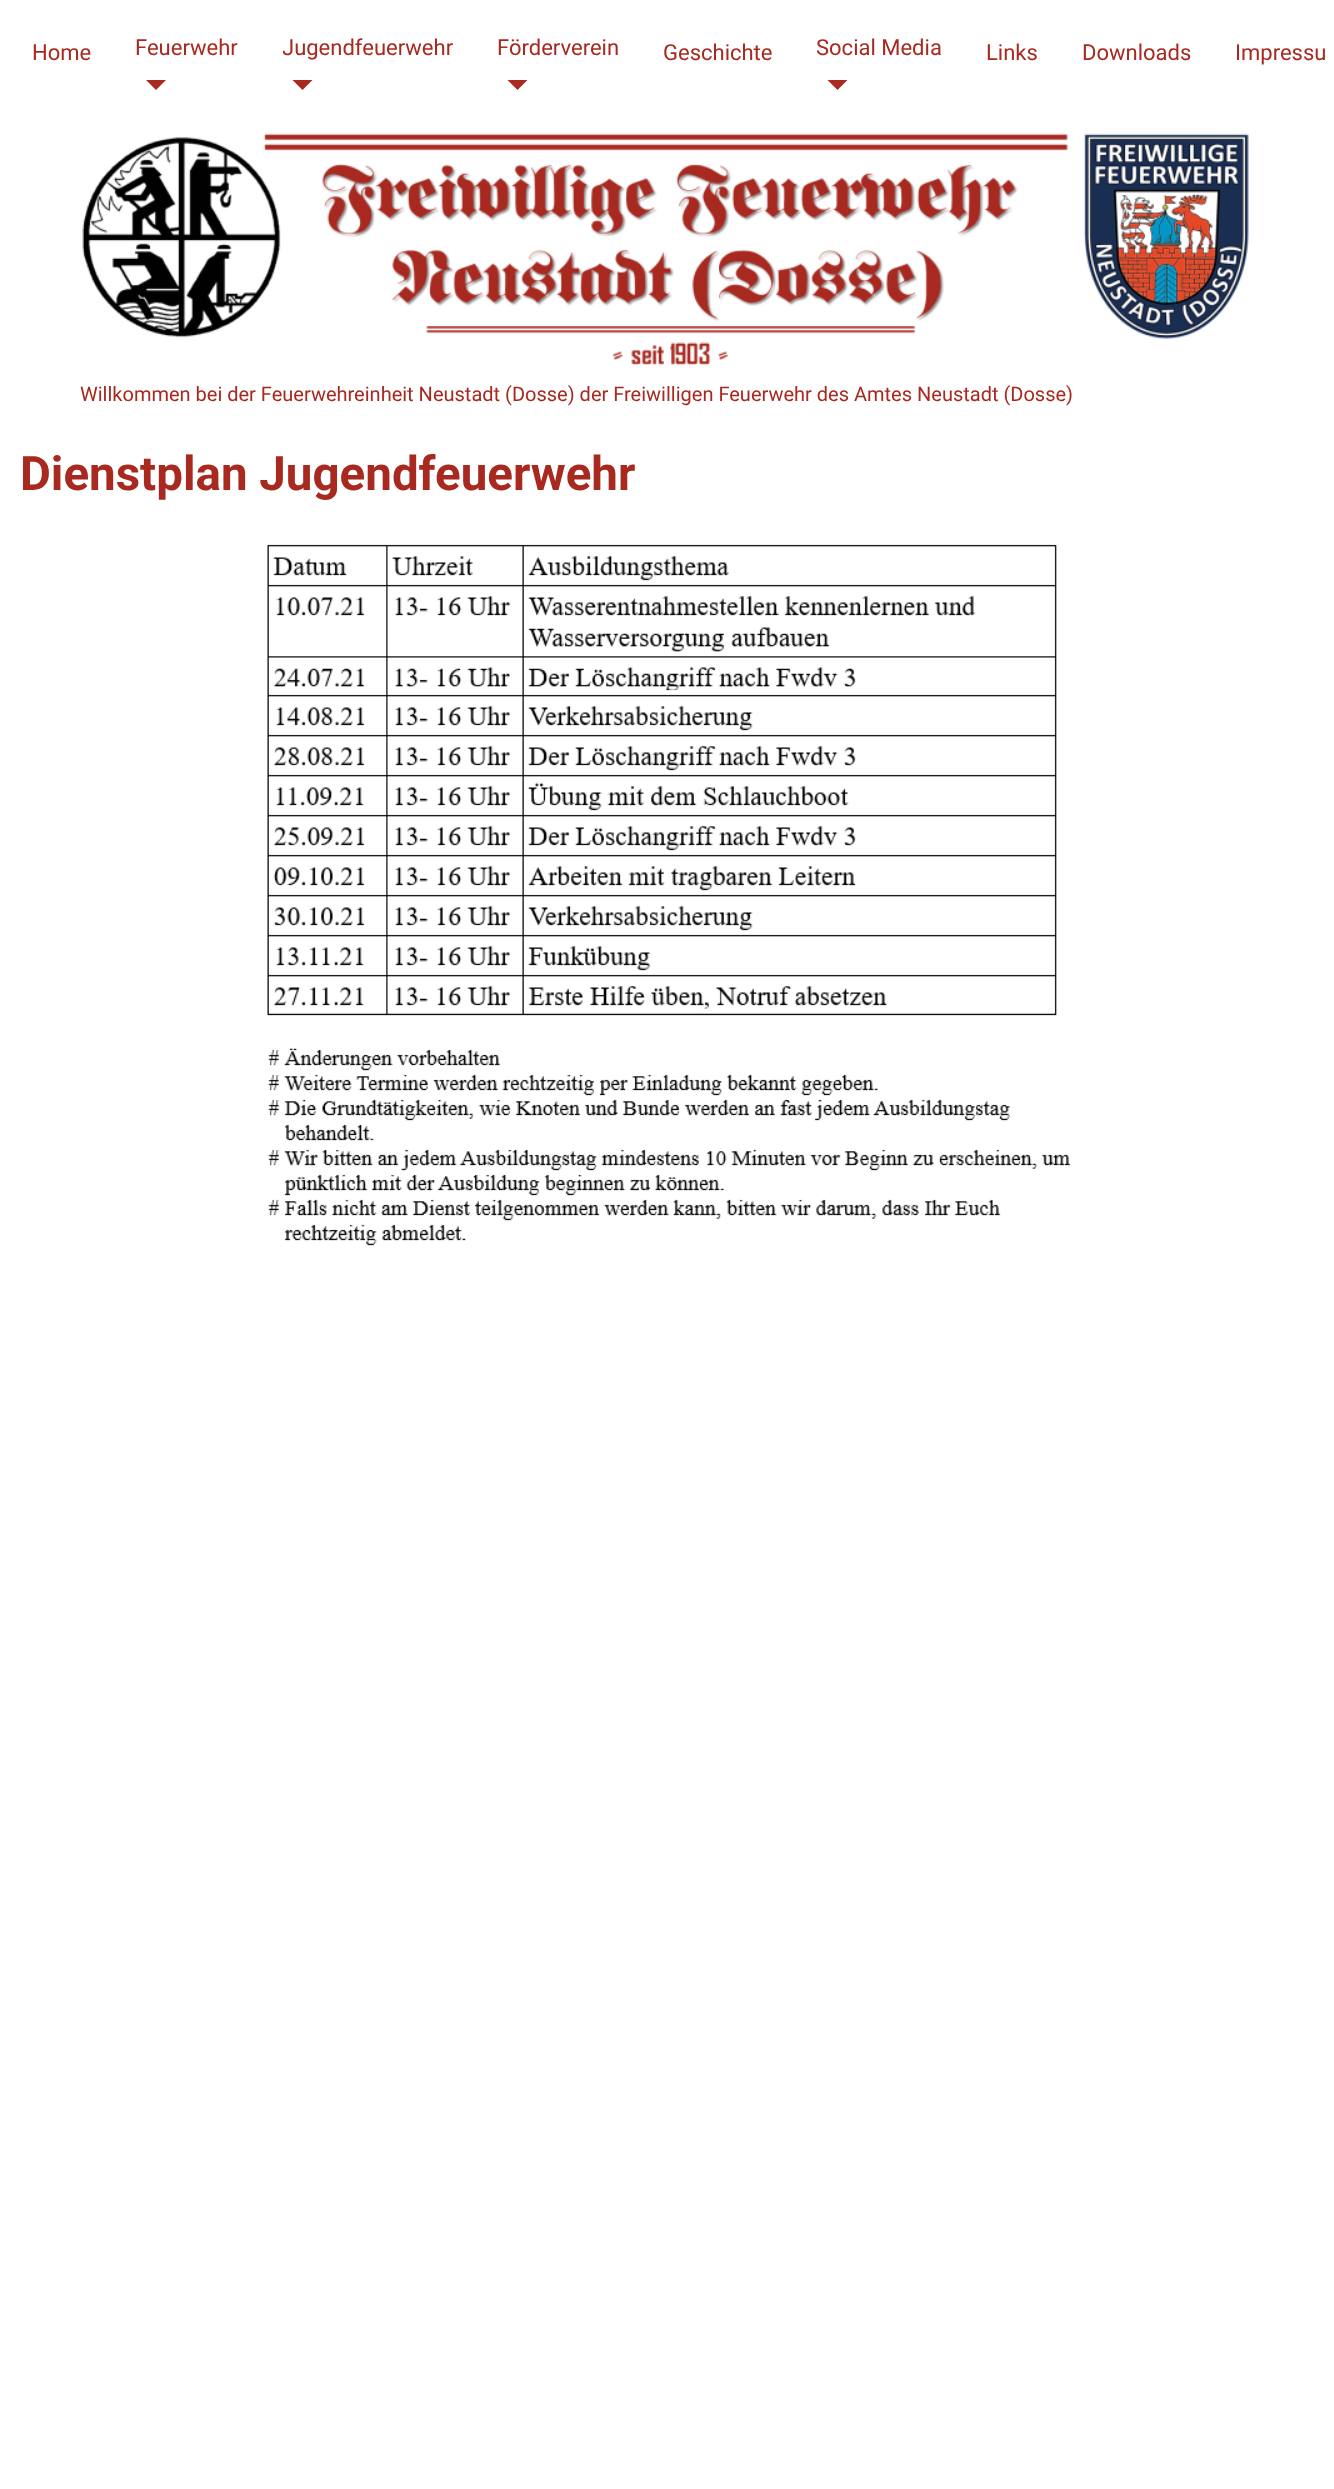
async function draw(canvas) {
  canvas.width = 1334
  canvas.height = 2489
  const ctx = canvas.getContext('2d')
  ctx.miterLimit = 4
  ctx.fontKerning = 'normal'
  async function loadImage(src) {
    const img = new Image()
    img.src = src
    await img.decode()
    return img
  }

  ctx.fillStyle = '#fff'
  ctx.fillRect(0, 0, 1334, 2489)
  ctx.font = '22px Roboto'
  ctx.fillStyle = '#a72920'
  ctx.fillText('Home', 32, 60)
  ctx.fillText('Feuerwehr', 135, 55)
  ctx.beginPath()
  ctx.moveTo(146, 80)
  ctx.lineTo(166, 80)
  ctx.lineTo(156, 90)
  ctx.closePath()
  ctx.fill()
  ctx.save()
  ctx.beginPath()
  ctx.rect(283, 31, 170, 33)
  ctx.clip()
  ctx.fillText('Jugendfeuerwehr', 282, 55)
  ctx.restore()
  ctx.beginPath()
  ctx.moveTo(292.5, 80)
  ctx.lineTo(312.5, 80)
  ctx.lineTo(302.5, 90)
  ctx.closePath()
  ctx.fill()
  ctx.fillText('Förderverein', 497, 55)
  ctx.beginPath()
  ctx.moveTo(507.5, 80)
  ctx.lineTo(527.5, 80)
  ctx.lineTo(517.5, 90)
  ctx.closePath()
  ctx.fill()
  ctx.fillText('Geschichte', 663, 60)
  ctx.fillText('Social Media', 816, 55)
  ctx.beginPath()
  ctx.moveTo(827.5, 80)
  ctx.lineTo(847.5, 80)
  ctx.lineTo(837.5, 90)
  ctx.closePath()
  ctx.fill()
  ctx.fillText('Links', 986, 60)
  ctx.fillText('Downloads', 1082, 60)
  ctx.fillText('Impressu', 1235, 60)
  ctx.drawImage(await loadImage('image0.png'), 82, 133, 1167, 233)
  ctx.font = '20px Roboto'
  ctx.fillText('Willkommen bei der Feuerwehreinheit Neustadt (Dosse) der Freiwilligen Feuerwehr des Amtes Neustadt (Dosse)', 80, 401)
  ctx.font = 'bold 47.5px Roboto'
  ctx.fillText('Dienstplan Jugendfeuerwehr', 20, 490)
  ctx.drawImage(await loadImage('image1.png'), 267, 544, 804, 702)
}

draw(document.querySelector('canvas'))
